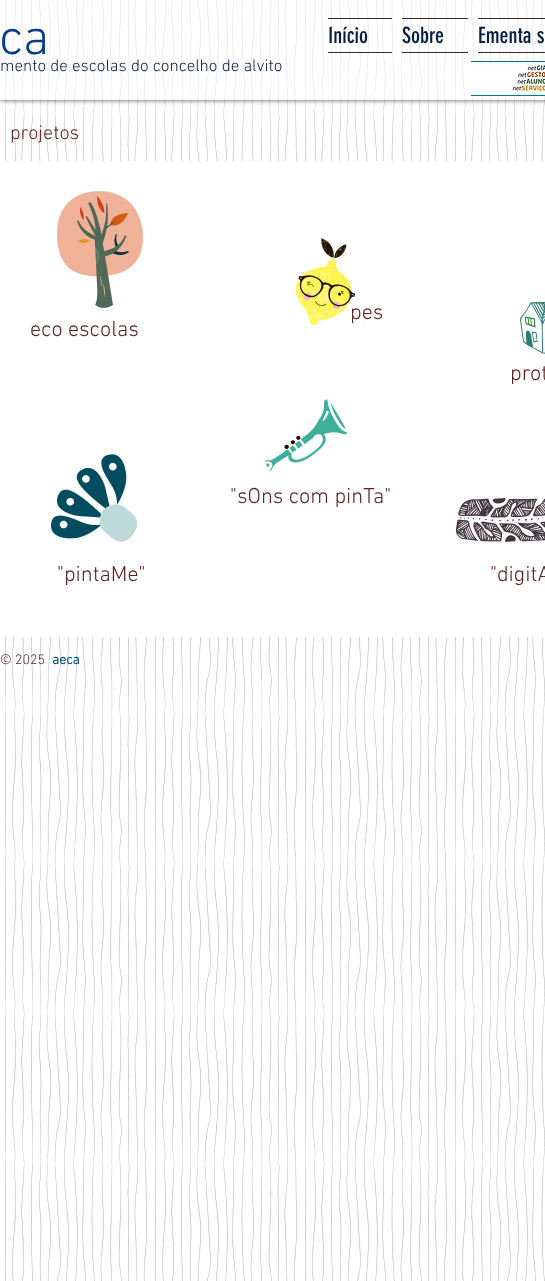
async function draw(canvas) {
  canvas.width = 545
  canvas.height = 1281
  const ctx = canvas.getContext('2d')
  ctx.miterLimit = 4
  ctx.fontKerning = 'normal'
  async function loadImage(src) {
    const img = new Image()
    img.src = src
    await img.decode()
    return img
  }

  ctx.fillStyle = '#fff'
  ctx.fillRect(0, 0, 545, 1281)
  ctx.drawImage(await loadImage('image0.png'), 5, 0, 540, 1281)
  ctx.save()
  ctx.beginPath()
  ctx.rect(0, 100, 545, 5)
  ctx.clip()
  ctx.fillStyle = '#000000b3'
  ctx.filter = 'blur(2.5px)'
  ctx.beginPath()
  ctx.rect(0, 0, 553, 100)
  ctx.fill()
  ctx.filter = 'none'
  ctx.restore()
  ctx.fillStyle = '#ffffff99'
  ctx.fillRect(5, 0, 540, 100)
  ctx.font = '300 52px "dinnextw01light"'
  ctx.fillStyle = '#093d8a'
  ctx.fillText('ca', -1, 54)
  ctx.font = '300 17px "dinnextw01light"'
  ctx.fillStyle = '#051e45'
  ctx.fillText('mento de escolas do concelho de alvito', 0, 71)
  ctx.fillStyle = '#2f2e2e'
  ctx.fillRect(328, 18, 64, 1)
  ctx.fillRect(328, 52, 64, 1)
  ctx.font = '22px "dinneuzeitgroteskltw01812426"'
  ctx.fillStyle = '#051e45'
  ctx.fillText('Início', 328, 43)
  ctx.fillStyle = '#2f2e2e'
  ctx.fillRect(402, 18, 66, 1)
  ctx.fillRect(402, 52, 66, 1)
  ctx.fillStyle = '#051e45'
  ctx.fillText('Sobre', 402, 43)
  ctx.fillStyle = '#2f2e2e'
  ctx.fillRect(478, 18, 67, 1)
  ctx.fillRect(478, 52, 67, 1)
  ctx.fillStyle = '#051e45'
  ctx.fillText('Ementa s', 478, 43)
  ctx.drawImage(await loadImage('image1.png'), 471, 61, 74, 35)
  ctx.font = '300 20px "dinnextw01light"'
  ctx.fillStyle = '#612121'
  ctx.fillText('projetos', 10, 139)
  ctx.fillStyle = '#fff'
  ctx.fillRect(5, 161, 540, 476)
  ctx.drawImage(await loadImage('image2.png'), 57, 191, 86, 117)
  ctx.drawImage(await loadImage('image3.png'), 295, 238, 61, 88)
  ctx.font = '300 22px "dinnextw01light"'
  ctx.fillStyle = '#612121'
  ctx.fillText('pes', 350, 319)
  ctx.drawImage(await loadImage('image4.png'), 520, 302, 25, 52)
  ctx.fillText('eco escolas', 30, 336)
  ctx.fillText('prot', 510, 380)
  ctx.drawImage(await loadImage('image5.png'), 264, 399, 83, 72)
  ctx.drawImage(await loadImage('image6.png'), 51, 454, 86, 88)
  ctx.fillText('"sOns com pinTa"', 230, 503)
  ctx.drawImage(await loadImage('image7.png'), 456, 498, 89, 44)
  ctx.fillText('"pintaMe"', 57, 581)
  ctx.fillText('"digitA', 490, 581)
  ctx.font = '300 14px "dinnextw01light"'
  ctx.fillText('© 2025', 0, 664)
  ctx.font = 'bold 14px "dinnextw01light"'
  ctx.fillStyle = '#045184'
  ctx.fillText('aeca', 52, 664)
}

draw(document.querySelector('canvas'))
